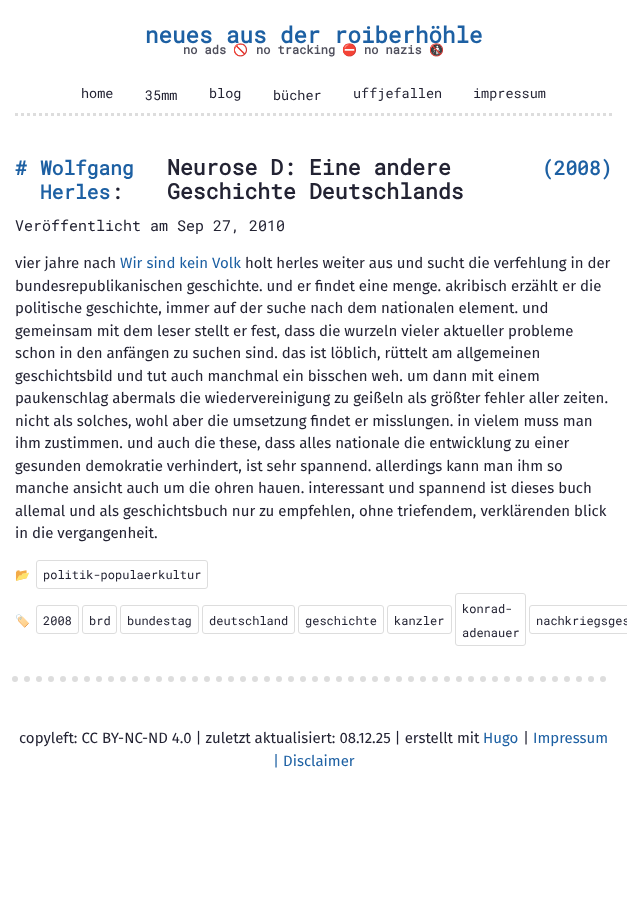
async function draw(canvas) {
  canvas.width = 627
  canvas.height = 917
  const ctx = canvas.getContext('2d')
  ctx.miterLimit = 4
  ctx.fontKerning = 'normal'

  ctx.fillStyle = '#fff'
  ctx.fillRect(0, 0, 627, 917)
  ctx.beginPath()
  ctx.moveTo(15, 114.5)
  ctx.lineTo(612, 114.5)
  ctx.strokeStyle = '#ddd'
  ctx.lineWidth = 3
  ctx.setLineDash([3, 3])
  ctx.stroke()
  ctx.font = 'bold 22.5px Roboto Mono'
  ctx.fillStyle = '#1d60a3'
  ctx.fillText('neues aus der roiberhöhle', 145, 43)
  ctx.font = 'bold 12px Roboto Mono'
  ctx.fillStyle = '#4f4f5c'
  ctx.fillText('no ads', 183, 54)
  ctx.font = 'bold 12px Noto Color Emoji'
  ctx.fillText('🚫', 233, 54)
  ctx.font = 'bold 12px Roboto Mono'
  ctx.fillText('no tracking', 256, 54)
  ctx.font = 'bold 12px Noto Color Emoji'
  ctx.fillText('⛔', 342, 54)
  ctx.font = 'bold 12px Roboto Mono'
  ctx.fillText('no nazis', 364, 54)
  ctx.font = 'bold 12px Noto Color Emoji'
  ctx.fillText('🚯', 429, 54)
  ctx.font = '13.5px Roboto Mono'
  ctx.fillStyle = '#232333'
  ctx.fillText('home', 81, 98)
  ctx.fillText('35mm', 145, 100)
  ctx.fillText('blog', 209, 98)
  ctx.fillText('bücher', 273, 100)
  ctx.fillText('uffjefallen', 353, 98)
  ctx.fillText('impressum', 473, 98)
  ctx.font = 'bold 19.5px Roboto Mono'
  ctx.fillStyle = '#1d60a3'
  ctx.fillText('#', 15, 175)
  ctx.fillText('Wolfgang', 40, 175)
  ctx.fillText('Herles', 40, 199)
  ctx.fillStyle = '#232333'
  ctx.fillText(':', 111, 199)
  ctx.font = 'bold 21.5px Roboto Mono'
  ctx.fillText('Neurose D: Eine andere', 167, 175)
  ctx.fillText('Geschichte Deutschlands', 167, 199)
  ctx.font = 'bold 19.5px Roboto Mono'
  ctx.fillStyle = '#1d60a3'
  ctx.fillText('(2008)', 542, 175)
  ctx.font = '15px Roboto Mono'
  ctx.fillStyle = '#232333'
  ctx.fillText('Veröffentlicht am Sep 27, 2010', 15, 231)
  ctx.font = '15px Fira Sans'
  ctx.fillText('vier jahre nach', 15, 268)
  ctx.fillStyle = '#1d60a3'
  ctx.fillText('Wir sind kein Volk', 120, 268)
  ctx.fillStyle = '#232333'
  ctx.fillText('holt herles weiter aus und sucht die verfehlung in der', 245, 268)
  ctx.fillText('bundesrepublikanischen geschichte. und er findet eine menge. akribisch erzählt er die', 15, 291)
  ctx.fillText('politische geschichte, immer auf der suche nach dem nationalen element. und', 15, 313)
  ctx.fillText('gemeinsam mit dem leser stellt er fest, dass die wurzeln vieler aktueller probleme', 15, 336)
  ctx.fillText('schon in den anfängen zu suchen sind. das ist löblich, rüttelt am allgemeinen', 15, 358)
  ctx.fillText('geschichtsbild und tut auch manchmal ein bisschen weh. um dann mit einem', 15, 381)
  ctx.fillText('paukenschlag abermals die wiedervereinigung zu geißeln als größter fehler aller zeiten.', 15, 403)
  ctx.fillText('nicht als solches, wohl aber die umsetzung findet er misslungen. in vielem muss man', 15, 426)
  ctx.fillText('ihm zustimmen. und auch die these, dass alles nationale die entwicklung zu einer', 15, 448)
  ctx.fillText('gesunden demokratie verhindert, ist sehr spannend. allerdings kann man ihm so', 15, 471)
  ctx.fillText('manche ansicht auch um die ohren hauen. interessant und spannend ist dieses buch', 15, 493)
  ctx.fillText('allemal und als geschichtsbuch nur zu empfehlen, ohne triefendem, verklärenden blick', 15, 516)
  ctx.fillText('in die vergangenheit.', 15, 538)
  ctx.font = '12px Noto Color Emoji'
  ctx.fillStyle = '#1d60a3'
  ctx.fillText('📂', 15, 579)
  ctx.beginPath()
  ctx.roundRect(36.5, 560.5, 171, 28, 2.5)
  ctx.lineWidth = 1
  ctx.setLineDash([])
  ctx.stroke()
  ctx.font = '12px Roboto Mono'
  ctx.fillStyle = '#232333'
  ctx.fillText('politik-populaerkultur', 43, 579)
  ctx.font = '12px Noto Color Emoji'
  ctx.fillStyle = '#1d60a3'
  ctx.fillText('🏷️', 15, 625)
  ctx.beginPath()
  ctx.roundRect(36.5, 605.5, 42, 28, 2.5)
  ctx.stroke()
  ctx.font = '12px Roboto Mono'
  ctx.fillStyle = '#232333'
  ctx.fillText('2008', 43, 625)
  ctx.beginPath()
  ctx.roundRect(82.5, 605.5, 34, 28, 2.5)
  ctx.stroke()
  ctx.fillText('brd', 89, 625)
  ctx.beginPath()
  ctx.roundRect(120.5, 605.5, 78, 28, 2.5)
  ctx.stroke()
  ctx.fillText('bundestag', 127, 625)
  ctx.beginPath()
  ctx.roundRect(202.5, 605.5, 92, 28, 2.5)
  ctx.stroke()
  ctx.fillText('deutschland', 209, 625)
  ctx.beginPath()
  ctx.roundRect(298.5, 605.5, 85, 28, 2.5)
  ctx.stroke()
  ctx.fillText('geschichte', 305, 625)
  ctx.beginPath()
  ctx.roundRect(387.5, 605.5, 64, 28, 2.5)
  ctx.stroke()
  ctx.fillText('kanzler', 394, 625)
  ctx.beginPath()
  ctx.roundRect(455.5, 593.5, 70, 52, 2.5)
  ctx.stroke()
  ctx.fillText('konrad-', 462, 613)
  ctx.fillText('adenauer', 462, 637)
  ctx.beginPath()
  ctx.roundRect(529.5, 605.5, 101, 28, 2.5)
  ctx.stroke()
  ctx.fillText('nachkriegsges', 536, 625)
  ctx.beginPath()
  ctx.moveTo(15, 679)
  ctx.lineTo(612, 679)
  ctx.lineWidth = 6
  ctx.lineCap = 'round'
  ctx.setLineDash([0, 12])
  ctx.stroke()
  ctx.font = '15px Fira Sans'
  ctx.fillText('copyleft: CC BY-NC-ND 4.0 | zuletzt aktualisiert: 08.12.25 | erstellt mit', 19, 743)
  ctx.fillStyle = '#1d60a3'
  ctx.fillText('Hugo', 483, 743)
  ctx.fillStyle = '#232333'
  ctx.fillText('|', 523, 743)
  ctx.fillStyle = '#1d60a3'
  ctx.fillText('Impressum', 533, 743)
  ctx.fillText('| Disclaimer', 273, 766)
}

draw(document.querySelector('canvas'))
